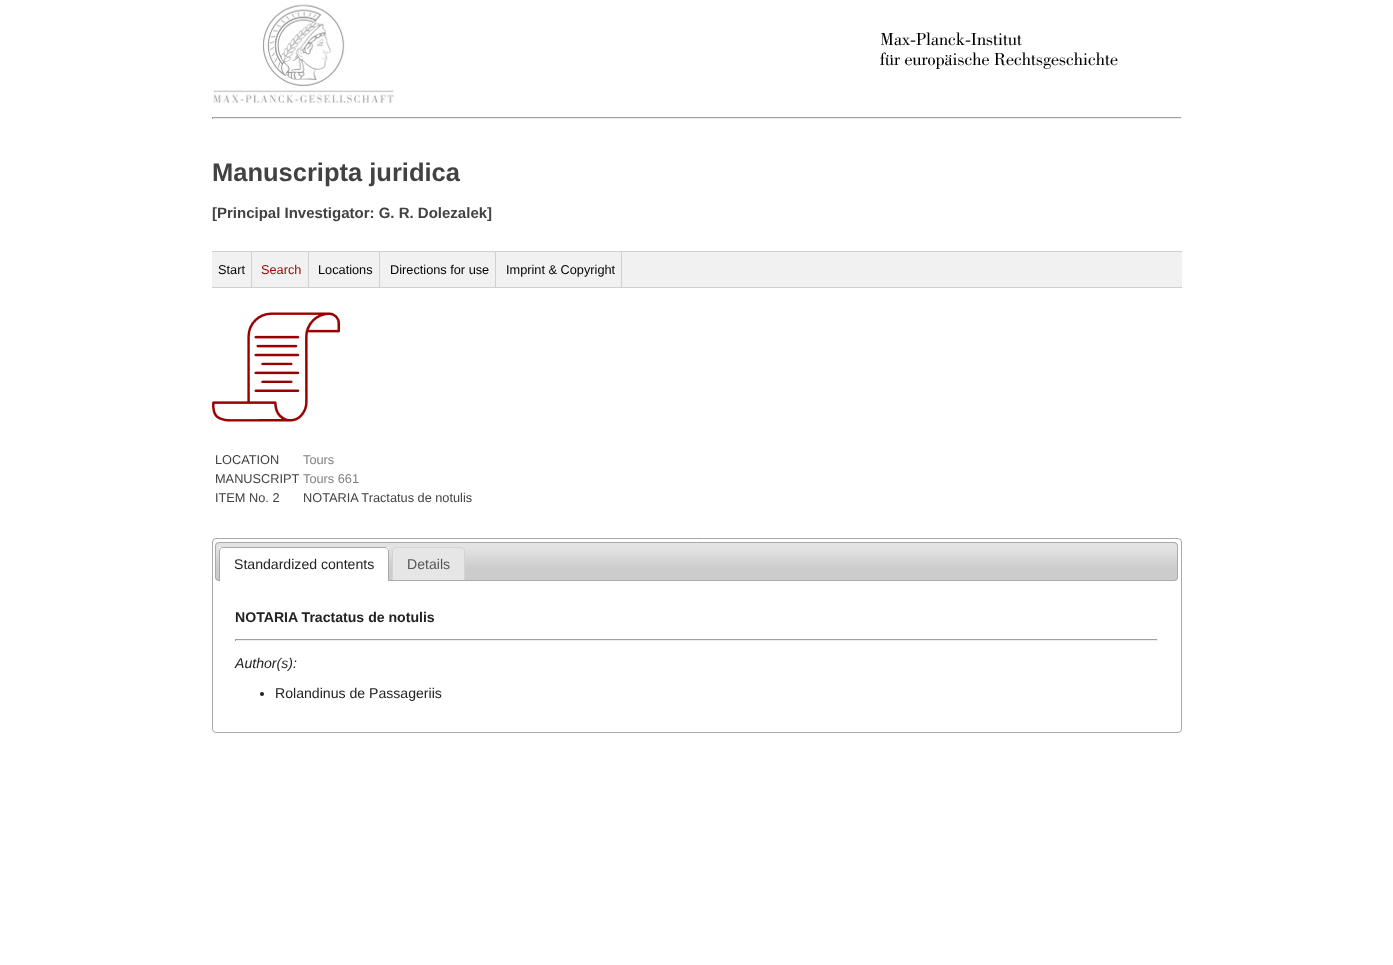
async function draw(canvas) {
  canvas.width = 1393
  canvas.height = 965
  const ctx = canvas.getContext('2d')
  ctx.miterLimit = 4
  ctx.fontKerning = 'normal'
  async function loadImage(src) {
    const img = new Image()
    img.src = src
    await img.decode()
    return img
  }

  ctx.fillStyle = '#fff'
  ctx.fillRect(0, 0, 1393, 965)
  ctx.drawImage(await loadImage('image0.png'), 213, 4, 181, 102)
  ctx.drawImage(await loadImage('image1.png'), 880, 32, 238, 37)
  ctx.fillStyle = '#9f9f9f'
  ctx.fillRect(212, 117, 970, 1)
  ctx.fillStyle = '#eee'
  ctx.fillRect(1181, 117, 1, 2)
  ctx.fillRect(212, 118, 970, 1)
  ctx.fillStyle = '#9f9f9f'
  ctx.fillRect(212, 117, 1, 2)
  ctx.font = 'bold 25.5px Liberation Sans'
  ctx.fillStyle = '#424242'
  ctx.fillText('Manuscripta juridica', 212, 181)
  ctx.font = 'bold 15px Liberation Sans'
  ctx.fillText('[Principal Investigator: G. R. Dolezalek]', 212, 218)
  ctx.fillStyle = '#f1f1f1'
  ctx.fillRect(212, 252, 970, 35)
  ctx.fillStyle = '#d0d0d0'
  ctx.fillRect(212, 251, 970, 1)
  ctx.fillRect(212, 287, 970, 1)
  ctx.fillRect(251, 252, 1, 35)
  ctx.font = '12.75px Liberation Sans'
  ctx.fillStyle = '#000'
  ctx.fillText('Start', 218, 274)
  ctx.fillStyle = '#d0d0d0'
  ctx.fillRect(308, 252, 1, 35)
  ctx.fillStyle = '#900'
  ctx.fillText('Search', 261, 274)
  ctx.fillStyle = '#d0d0d0'
  ctx.fillRect(379, 252, 1, 35)
  ctx.fillStyle = '#000'
  ctx.fillText('Locations', 318, 274)
  ctx.fillStyle = '#d0d0d0'
  ctx.fillRect(495, 252, 1, 35)
  ctx.fillStyle = '#000'
  ctx.fillText('Directions for use', 390, 274)
  ctx.fillStyle = '#d0d0d0'
  ctx.fillRect(621, 252, 1, 35)
  ctx.fillStyle = '#000'
  ctx.fillText('Imprint & Copyright', 506, 274)
  ctx.drawImage(await loadImage('image2.png'), 212, 312, 128, 110)
  ctx.fillStyle = '#424242'
  ctx.fillText('LOCATION', 215, 464)
  ctx.fillStyle = '#808080'
  ctx.fillText('Tours', 303, 464)
  ctx.fillStyle = '#424242'
  ctx.fillText('MANUSCRIPT', 215, 483)
  ctx.fillStyle = '#808080'
  ctx.fillText('Tours 661', 303, 483)
  ctx.fillStyle = '#424242'
  ctx.fillText('ITEM No. 2', 215, 502)
  ctx.fillText('NOTARIA Tractatus de notulis', 303, 502)
  ctx.beginPath()
  ctx.roundRect(212.5, 538.5, 969, 194, 3.5)
  ctx.strokeStyle = '#aaa'
  ctx.stroke()
  ctx.drawImage(await loadImage('image3.png'), 215, 542, 963, 39)
  ctx.beginPath()
  ctx.roundRect(215.5, 542.5, 962, 38, 3.5)
  ctx.stroke()
  ctx.fillStyle = '#fff'
  ctx.fillRect(219, 547, 170, 34)
  ctx.fillStyle = '#aaa'
  ctx.beginPath()
  ctx.moveTo(223, 547)
  ctx.lineTo(385, 547)
  ctx.bezierCurveTo(387, 547, 389, 549, 389, 551)
  ctx.lineTo(389, 581)
  ctx.lineTo(219, 581)
  ctx.lineTo(219, 551)
  ctx.bezierCurveTo(219, 549, 221, 547, 223, 547)
  ctx.closePath()
  ctx.moveTo(223, 548)
  ctx.lineTo(385, 548)
  ctx.bezierCurveTo(387, 548, 388, 549, 388, 551)
  ctx.lineTo(388, 581)
  ctx.lineTo(220, 581)
  ctx.lineTo(220, 551)
  ctx.bezierCurveTo(220, 549, 221, 548, 223, 548)
  ctx.closePath()
  ctx.fill('evenodd')
  ctx.font = '14.1px Liberation Sans'
  ctx.fillStyle = '#222'
  ctx.fillText('Standardized contents', 234, 569)
  ctx.fillStyle = '#e6e6e6'
  ctx.beginPath()
  ctx.roundRect(393, 548, 71, 32, [3, 3, 0, 0])
  ctx.fill()
  ctx.fillRect(392, 550, 73, 30)
  ctx.fillStyle = '#d3d3d3'
  ctx.beginPath()
  ctx.moveTo(396, 547)
  ctx.lineTo(461, 547)
  ctx.bezierCurveTo(463, 547, 465, 549, 465, 551)
  ctx.lineTo(465, 580)
  ctx.lineTo(392, 580)
  ctx.lineTo(392, 551)
  ctx.bezierCurveTo(392, 549, 394, 547, 396, 547)
  ctx.closePath()
  ctx.moveTo(396, 548)
  ctx.lineTo(461, 548)
  ctx.bezierCurveTo(463, 548, 464, 549, 464, 551)
  ctx.lineTo(464, 580)
  ctx.lineTo(393, 580)
  ctx.lineTo(393, 551)
  ctx.bezierCurveTo(393, 549, 394, 548, 396, 548)
  ctx.closePath()
  ctx.fill('evenodd')
  ctx.fillStyle = '#555'
  ctx.fillText('Details', 407, 569)
  ctx.font = 'bold 14.1px Liberation Sans'
  ctx.fillStyle = '#222'
  ctx.fillText('NOTARIA Tractatus de notulis', 235, 622)
  ctx.fillStyle = '#9f9f9f'
  ctx.fillRect(235, 639, 923, 1)
  ctx.fillStyle = '#eee'
  ctx.fillRect(1157, 639, 1, 2)
  ctx.fillRect(235, 640, 923, 1)
  ctx.fillStyle = '#9f9f9f'
  ctx.fillRect(235, 639, 1, 2)
  ctx.font = 'italic 14.1px Liberation Sans'
  ctx.fillStyle = '#222'
  ctx.fillText('Author(s):', 235, 668)
  ctx.beginPath()
  ctx.arc(262, 694, 2, 0, 2 * Math.PI)
  ctx.fill()
  ctx.font = '14.1px Liberation Sans'
  ctx.fillText('Rolandinus de Passageriis', 275, 698)
}

draw(document.querySelector('canvas'))
